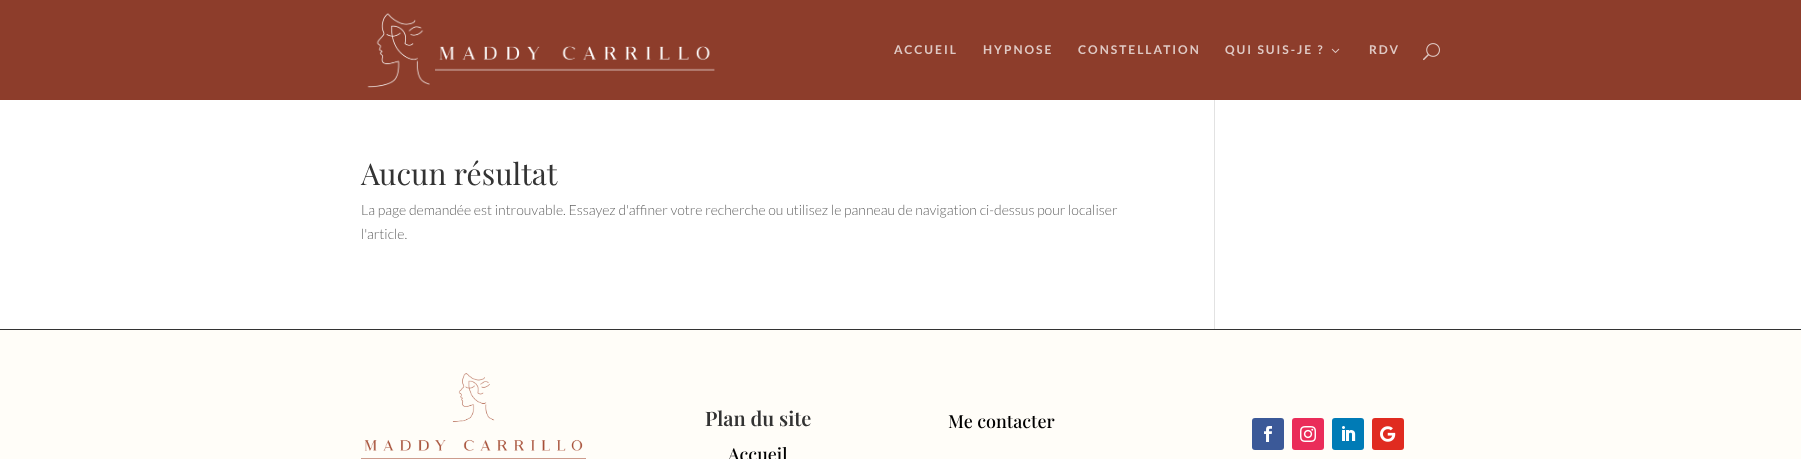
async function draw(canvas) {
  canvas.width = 1801
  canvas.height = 459
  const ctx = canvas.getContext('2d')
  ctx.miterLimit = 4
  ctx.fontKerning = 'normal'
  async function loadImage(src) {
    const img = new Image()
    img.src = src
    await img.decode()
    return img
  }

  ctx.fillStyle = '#fffdf8'
  ctx.fillRect(0, 0, 1801, 459)
  ctx.fillStyle = '#8d3d2b'
  ctx.fillRect(0, 0, 1801, 100)
  ctx.drawImage(await loadImage('image0.png'), 367, 13, 348, 75)
  ctx.letterSpacing = '2px'
  ctx.font = 'bold 12px Lato'
  ctx.fillStyle = '#dfc9c4'
  ctx.fillText('ACCUEIL', 894, 54)
  ctx.fillText('HYPNOSE', 983, 54)
  ctx.fillText('CONSTELLATION', 1078, 54)
  ctx.fillText('QUI SUIS-JE ?', 1225, 54)
  ctx.drawImage(await loadImage('image1.png'), 1331, 48, 9, 5)
  ctx.fillText('RDV', 1369, 54)
  ctx.drawImage(await loadImage('image2.png'), 1423, 43, 17, 18)
  ctx.fillStyle = '#fff'
  ctx.fillRect(0, 100, 1801, 229)
  ctx.letterSpacing = '0px'
  ctx.font = '30px Playfair Display'
  ctx.fillStyle = '#333'
  ctx.fillText('Aucun résultat', 361, 185)
  ctx.font = '300 14px Lato'
  ctx.fillStyle = '#666'
  ctx.fillText('La page demandée est introuvable. Essayez d\'affiner votre recherche ou utilisez le panneau de navigation ci-dessus pour localiser', 361, 215)
  ctx.fillText('l\'article.', 361, 239)
  ctx.fillStyle = '#e2e2e2'
  ctx.fillRect(1214, 100, 1, 229)
  ctx.fillStyle = '#333'
  ctx.fillRect(0, 329, 1801, 1)
  ctx.drawImage(await loadImage('image3.png'), 361, 373, 225, 86)
  ctx.font = '600 20px Playfair Display'
  ctx.fillText('Plan du site', 705, 426)
  ctx.font = '500 18px Playfair Display'
  ctx.fillStyle = '#000'
  ctx.fillText('Accueil', 728, 461)
  ctx.fillText('Me contacter', 948, 428)
  ctx.fillStyle = '#3b5998'
  ctx.beginPath()
  ctx.roundRect(1252, 418, 32, 32, 3)
  ctx.fill()
  ctx.drawImage(await loadImage('image4.png'), 1264, 426, 8, 16)
  ctx.fillStyle = '#ea2c59'
  ctx.beginPath()
  ctx.roundRect(1292, 418, 32, 32, 3)
  ctx.fill()
  ctx.drawImage(await loadImage('image5.png'), 1300, 426, 16, 16)
  ctx.fillStyle = '#007bb6'
  ctx.beginPath()
  ctx.roundRect(1332, 418, 32, 32, 3)
  ctx.fill()
  ctx.drawImage(await loadImage('image6.png'), 1342, 426, 14, 15)
  ctx.fillStyle = '#e02b20'
  ctx.beginPath()
  ctx.roundRect(1372, 418, 32, 32, 3)
  ctx.fill()
  ctx.drawImage(await loadImage('image7.png'), 1380, 426, 16, 16)
}

draw(document.querySelector('canvas'))
